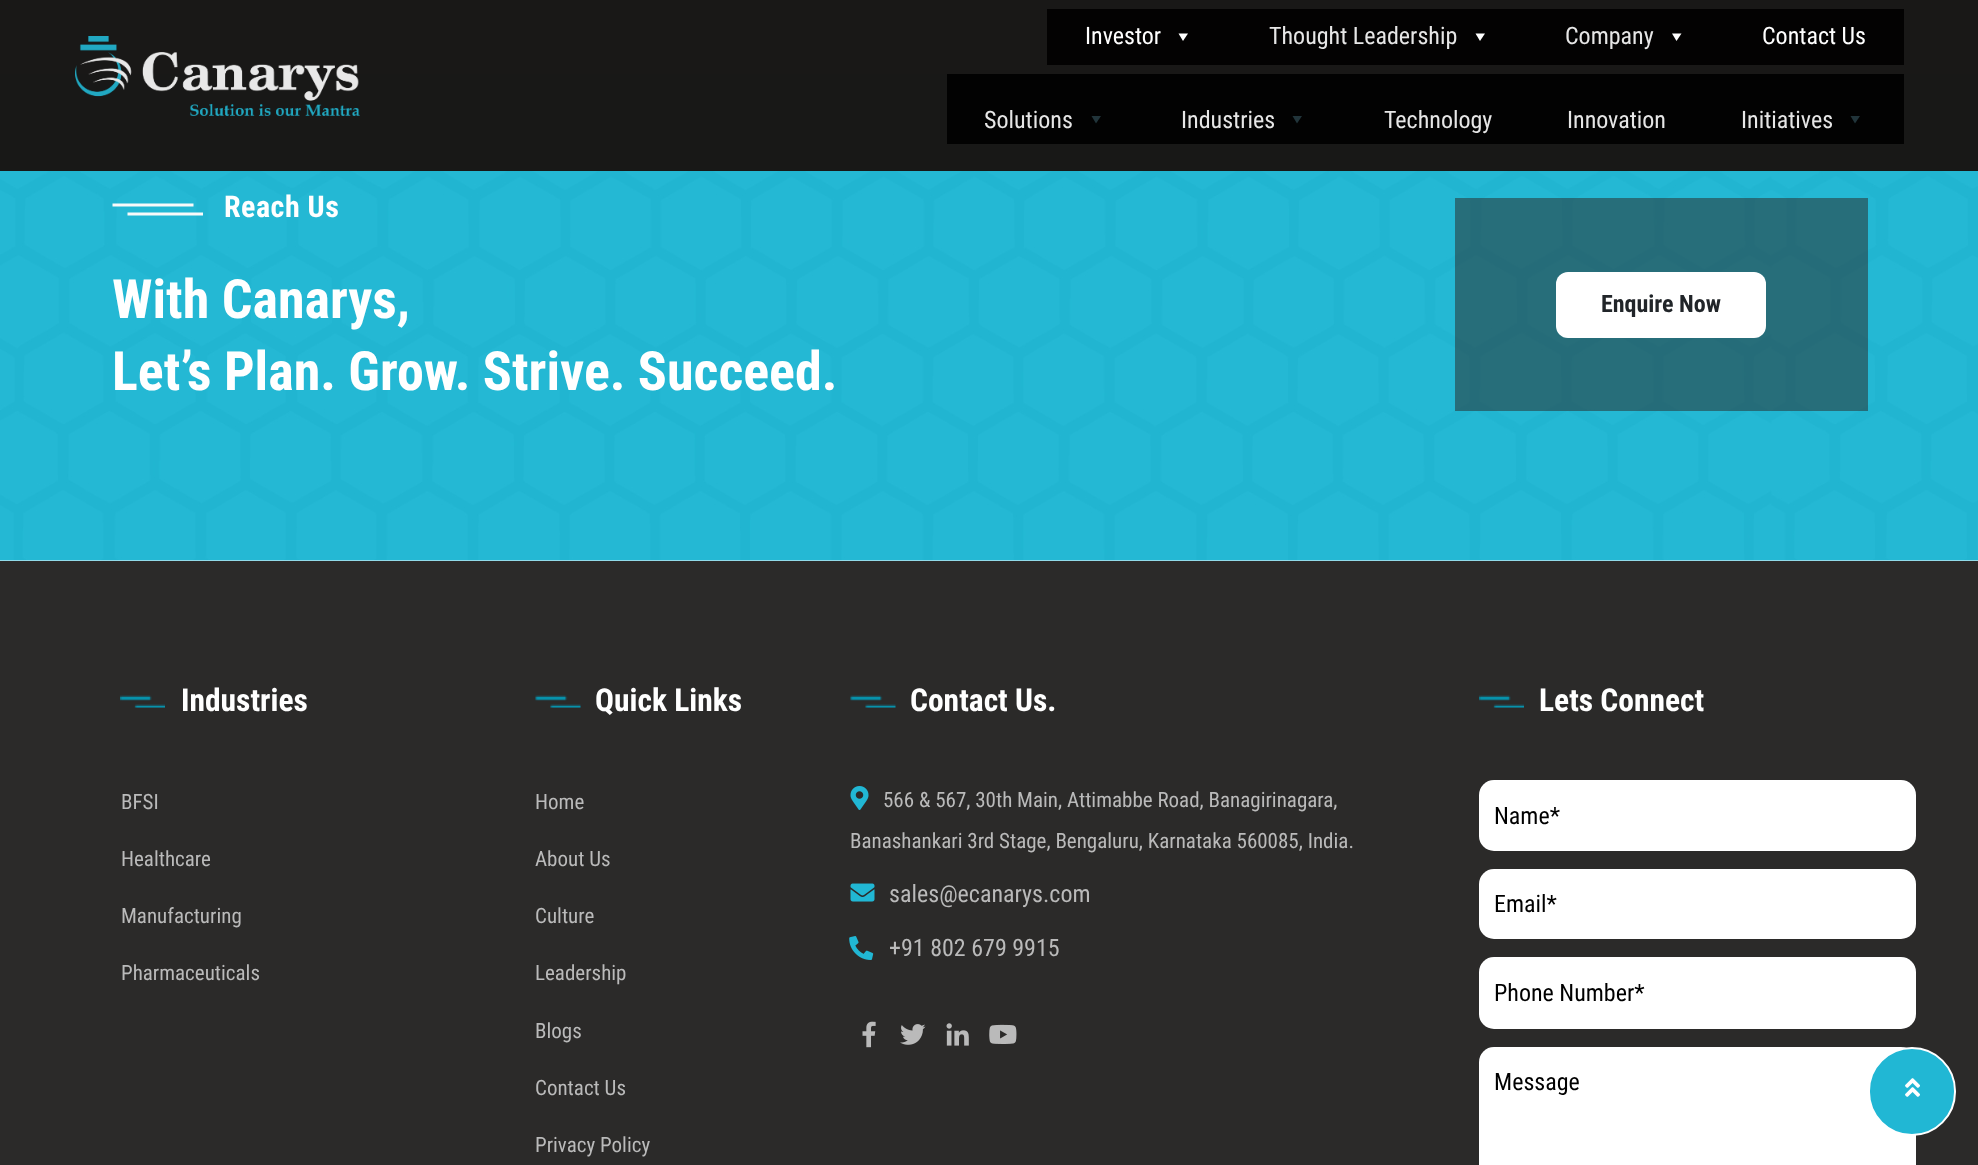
async function draw(canvas) {
  canvas.width = 1978
  canvas.height = 1165
  const ctx = canvas.getContext('2d')
  ctx.miterLimit = 4
  ctx.fontKerning = 'normal'
  async function loadImage(src) {
    const img = new Image()
    img.src = src
    await img.decode()
    return img
  }

  ctx.fillStyle = '#fff'
  ctx.fillRect(0, 0, 1978, 1165)
  ctx.fillStyle = '#191817'
  ctx.fillRect(0, 0, 1978, 74)
  ctx.fillStyle = '#030202'
  ctx.fillRect(1047, 9, 857, 56)
  ctx.font = '24px Roboto Condensed'
  ctx.fillStyle = '#fff'
  ctx.fillText('Investor', 1085, 44)
  ctx.beginPath()
  ctx.moveTo(1188, 33.5)
  ctx.lineTo(1183, 41)
  ctx.lineTo(1178.5, 33.5)
  ctx.closePath()
  ctx.fill()
  ctx.fillStyle = '#e6e6e6'
  ctx.fillText('Thought Leadership', 1269, 44)
  ctx.fillStyle = '#fff'
  ctx.beginPath()
  ctx.moveTo(1485, 33.5)
  ctx.lineTo(1480, 41)
  ctx.lineTo(1475.5, 33.5)
  ctx.closePath()
  ctx.fill()
  ctx.fillStyle = '#e6e6e6'
  ctx.fillText('Company', 1565, 44)
  ctx.fillStyle = '#fff'
  ctx.beginPath()
  ctx.moveTo(1681.5, 33.5)
  ctx.lineTo(1676.5, 41)
  ctx.lineTo(1672, 33.5)
  ctx.closePath()
  ctx.fill()
  ctx.fillText('Contact Us', 1762, 44)
  ctx.fillStyle = '#181817'
  ctx.fillRect(0, 74, 1978, 97)
  ctx.drawImage(await loadImage('image0.png'), 75, 36, 285, 80)
  ctx.fillStyle = '#020202'
  ctx.fillRect(947, 74, 957, 70)
  ctx.fillStyle = '#e6e6e6'
  ctx.fillText('Solutions', 984, 128)
  ctx.fillStyle = '#21343a'
  ctx.beginPath()
  ctx.moveTo(1101, 116)
  ctx.lineTo(1096, 123.5)
  ctx.lineTo(1091.5, 116)
  ctx.closePath()
  ctx.fill()
  ctx.fillStyle = '#e6e6e6'
  ctx.fillText('Industries', 1181, 128)
  ctx.fillStyle = '#21343a'
  ctx.beginPath()
  ctx.moveTo(1302, 116)
  ctx.lineTo(1297, 123.5)
  ctx.lineTo(1292.5, 116)
  ctx.closePath()
  ctx.fill()
  ctx.fillStyle = '#e6e6e6'
  ctx.fillText('Technology', 1384, 128)
  ctx.fillText('Innovation', 1567, 128)
  ctx.fillText('Initiatives', 1741, 128)
  ctx.fillStyle = '#21343a'
  ctx.beginPath()
  ctx.moveTo(1860, 116)
  ctx.lineTo(1855, 123.5)
  ctx.lineTo(1850.5, 116)
  ctx.closePath()
  ctx.fill()
  ctx.drawImage(await loadImage('image1.png'), 0, 171, 1978, 390)
  ctx.drawImage(await loadImage('image2.png'), 112, 203, 91, 13)
  ctx.letterSpacing = '0.5px'
  ctx.font = 'bold 30px Roboto Condensed'
  ctx.fillStyle = '#fff'
  ctx.fillText('Reach Us', 224, 217)
  ctx.letterSpacing = '0px'
  ctx.font = 'bold 54px Roboto Condensed'
  ctx.fillText('With Canarys,', 112, 318)
  ctx.fillText('Let’s Plan. Grow. Strive. Succeed.', 112, 390)
  ctx.fillStyle = '#2b2a2985'
  ctx.fillRect(1455, 198, 413, 213)
  ctx.fillStyle = '#fff'
  ctx.beginPath()
  ctx.roundRect(1556, 272, 210, 66, 12)
  ctx.fill()
  ctx.font = 'bold 24px Roboto Condensed'
  ctx.fillStyle = '#212529'
  ctx.fillText('Enquire Now', 1601, 312)
  ctx.fillStyle = '#2b2a29'
  ctx.fillRect(0, 561, 1978, 604)
  ctx.drawImage(await loadImage('image3.png'), 120, 695, 45, 13)
  ctx.font = 'bold 31.5px Roboto Condensed'
  ctx.fillStyle = '#fff'
  ctx.fillText('Industries', 181, 711)
  ctx.font = '21px Roboto Condensed'
  ctx.fillStyle = '#bababa'
  ctx.fillText('BFSI', 121, 809)
  ctx.fillText('Healthcare', 121, 866)
  ctx.fillText('Manufacturing', 121, 923)
  ctx.fillText('Pharmaceuticals', 121, 980)
  ctx.drawImage(await loadImage('image4.png'), 535, 695, 46, 13)
  ctx.font = 'bold 31.5px Roboto Condensed'
  ctx.fillStyle = '#fff'
  ctx.fillText('Quick Links', 595, 711)
  ctx.font = '21px Roboto Condensed'
  ctx.fillStyle = '#bababa'
  ctx.fillText('Home', 535, 809)
  ctx.fillText('About Us', 535, 866)
  ctx.fillText('Culture', 535, 923)
  ctx.fillText('Leadership', 535, 980)
  ctx.fillText('Blogs', 535, 1038)
  ctx.fillText('Contact Us', 535, 1095)
  ctx.fillText('Privacy Policy', 535, 1152)
  ctx.drawImage(await loadImage('image4.png'), 850, 695, 46, 13)
  ctx.font = 'bold 31.5px Roboto Condensed'
  ctx.fillStyle = '#fff'
  ctx.fillText('Contact Us.', 910, 711)
  ctx.drawImage(await loadImage('image5.png'), 850, 786, 19, 24)
  ctx.font = '21px Roboto Condensed'
  ctx.fillStyle = '#bababa'
  ctx.fillText('566 & 567, 30th Main, Attimabbe Road, Banagirinagara,', 883, 807)
  ctx.fillText('Banashankari 3rd Stage, Bengaluru, Karnataka 560085, India.', 850, 848)
  ctx.drawImage(await loadImage('image6.png'), 850, 883, 25, 19)
  ctx.font = '24px Roboto Condensed'
  ctx.fillText('sales@ecanarys.com', 889, 902)
  ctx.drawImage(await loadImage('image7.png'), 849, 936, 25, 24)
  ctx.fillText('+91 802 679 9915', 889, 956)
  ctx.drawImage(await loadImage('image8.png'), 862, 1021, 14, 27)
  ctx.drawImage(await loadImage('image9.png'), 900, 1024, 26, 21)
  ctx.drawImage(await loadImage('image10.png'), 946, 1023, 23, 23)
  ctx.drawImage(await loadImage('image11.png'), 989, 1024, 28, 20)
  ctx.drawImage(await loadImage('image3.png'), 1479, 695, 45, 13)
  ctx.font = 'bold 31.5px Roboto Condensed'
  ctx.fillStyle = '#fff'
  ctx.fillText('Lets Connect', 1539, 711)
  ctx.beginPath()
  ctx.roundRect(1479, 780, 437, 71, 15)
  ctx.fill()
  ctx.font = '24px Roboto Condensed'
  ctx.fillStyle = '#000'
  ctx.fillText('Name*', 1494, 824)
  ctx.fillStyle = '#fff'
  ctx.beginPath()
  ctx.roundRect(1479, 869, 437, 70, 15)
  ctx.fill()
  ctx.fillStyle = '#000'
  ctx.fillText('Email*', 1494, 912)
  ctx.fillStyle = '#fff'
  ctx.beginPath()
  ctx.roundRect(1479, 957, 437, 72, 15)
  ctx.fill()
  ctx.fillStyle = '#000'
  ctx.fillText('Phone Number*', 1494, 1001)
  ctx.fillStyle = '#fff'
  ctx.beginPath()
  ctx.roundRect(1479, 1047, 437, 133, 15)
  ctx.fill()
  ctx.fillStyle = '#000'
  ctx.fillText('Message', 1494, 1090)
  ctx.fillStyle = '#21b7d4'
  ctx.beginPath()
  ctx.roundRect(1869, 1048, 86, 87, 43)
  ctx.fill()
  ctx.strokeStyle = '#fff'
  ctx.lineWidth = 2
  ctx.stroke()
  ctx.drawImage(await loadImage('image12.png'), 1905, 1078, 15, 19)
}

draw(document.querySelector('canvas'))
